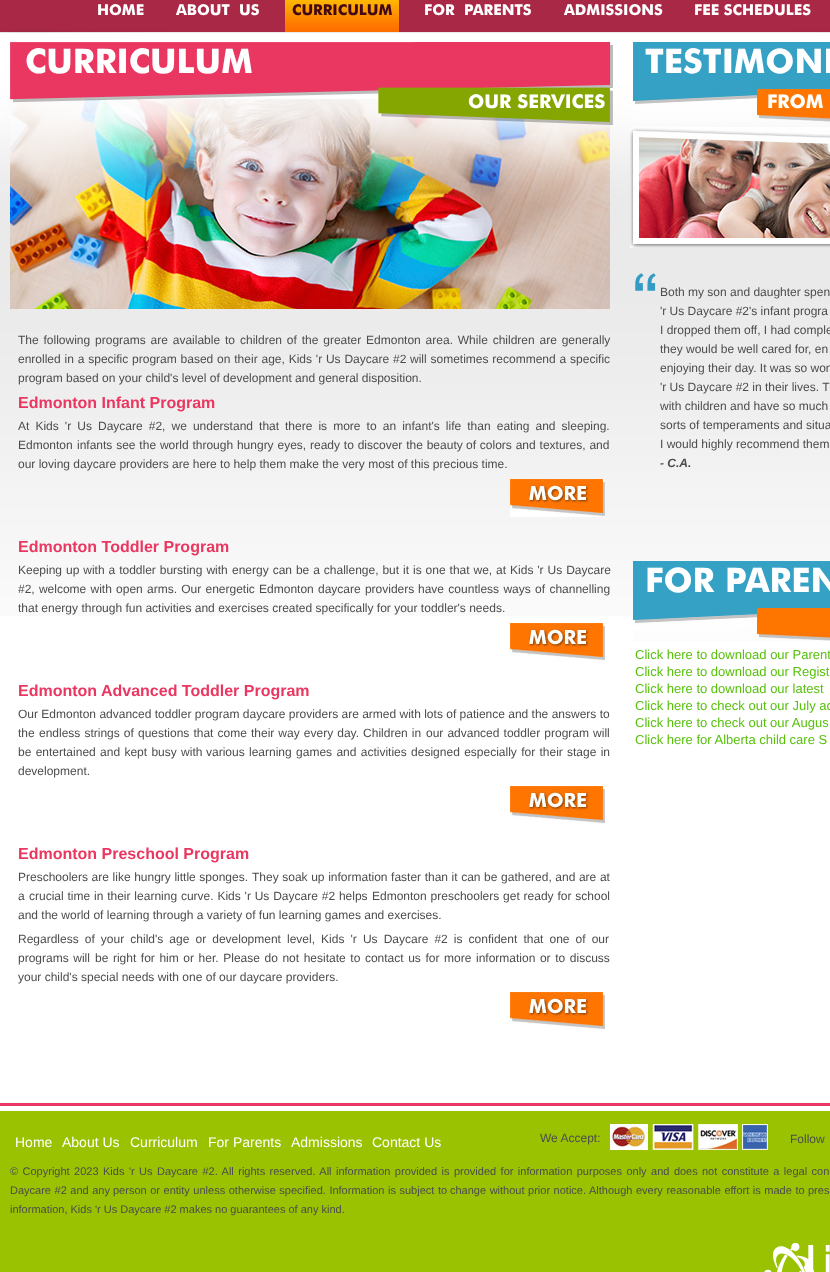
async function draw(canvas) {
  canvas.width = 830
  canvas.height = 1272
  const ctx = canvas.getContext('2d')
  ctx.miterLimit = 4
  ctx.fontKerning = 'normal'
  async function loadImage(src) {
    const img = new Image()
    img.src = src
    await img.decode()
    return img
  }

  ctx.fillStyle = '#fff'
  ctx.fillRect(0, 0, 830, 1272)
  ctx.drawImage(await loadImage('image0.png'), 0, 0, 830, 616)
  ctx.font = 'bold 15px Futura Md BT'
  ctx.fillText('HOME', 97, 15)
  ctx.fillText('ABOUT', 176, 15)
  ctx.fillText('US', 239, 15)
  ctx.drawImage(await loadImage('image1.png'), 285, 0, 114, 32)
  ctx.fillStyle = '#420815'
  ctx.fillText('CURRICULUM', 292, 15)
  ctx.fillStyle = '#fff'
  ctx.fillText('FOR', 424, 15)
  ctx.fillText('PARENTS', 464, 15)
  ctx.fillText('ADMISSIONS', 564, 15)
  ctx.fillText('FEE SCHEDULES', 694, 15)
  ctx.drawImage(await loadImage('image4.png'), 10, 99, 600, 210)
  ctx.drawImage(await loadImage('image2.png'), 0, 29, 830, 178)
  ctx.drawImage(await loadImage('image3.png'), 10, 42, 603, 83)
  ctx.font = 'bold 34px Futura Md BT'
  ctx.fillText('CURRICULUM', 25, 73)
  ctx.font = 'bold 19px Futura Md BT'
  ctx.fillText('OUR SERVICES', 468, 108)
  ctx.wordSpacing = '1.5px'
  ctx.font = '12px Liberation Sans'
  ctx.fillStyle = '#4c4c4c'
  ctx.fillText('The following programs are available to', 18, 344)
  ctx.fillText('children of the greater Edmonton area. While children are generally', 240, 344)
  ctx.wordSpacing = '0.5px'
  ctx.fillText('enrolled in a specific program based on their age, Kids \'r Us Daycare #2', 18, 363)
  ctx.fillText('will sometimes recommend a specific', 410, 363)
  ctx.wordSpacing = '0px'
  ctx.fillText('program based on your child\'s level of development and general disposition.', 18, 382)
  ctx.font = 'bold 16px Liberation Sans'
  ctx.fillStyle = '#ea3761'
  ctx.fillText('Edmonton Infant Program', 18, 408)
  ctx.wordSpacing = '2.75px'
  ctx.font = '12px Liberation Sans'
  ctx.fillStyle = '#4c4c4c'
  ctx.fillText('At Kids \'r Us Daycare #2, we understand that', 18, 430)
  ctx.fillText('there is more to an infant\'s life than eating and sleeping.', 285, 430)
  ctx.wordSpacing = '0px'
  ctx.fillText('Edmonton', 18, 449)
  ctx.wordSpacing = '0.5px'
  ctx.fillText('infants see the world through hungry eyes, ready to discover the beauty', 77, 449)
  ctx.fillText('of colors and textures, and', 466, 449)
  ctx.wordSpacing = '0px'
  ctx.fillText('our loving daycare providers are here to help them make the very most of this precious time.', 18, 468)
  ctx.drawImage(await loadImage('image5.png'), 510, 479, 95, 38)
  ctx.font = 'bold 16px Liberation Sans'
  ctx.fillStyle = '#ea3761'
  ctx.fillText('Edmonton Toddler Program', 18, 552)
  ctx.wordSpacing = '0.6px'
  ctx.font = '12px Liberation Sans'
  ctx.fillStyle = '#4c4c4c'
  ctx.fillText('Keeping up with a toddler bursting with', 18, 574)
  ctx.fillText('energy can be a challenge, but it is one that we, at Kids \'r Us Daycare', 232, 574)
  ctx.wordSpacing = '0.9px'
  ctx.fillText('#2, welcome with open arms. Our energetic Edmonton daycare providers', 18, 593)
  ctx.wordSpacing = '1px'
  ctx.fillText('have countless ways of channelling', 418, 593)
  ctx.wordSpacing = '0px'
  ctx.fillText('that energy through fun activities and exercises created specifically for your toddler\'s needs.', 18, 612)
  ctx.drawImage(await loadImage('image5.png'), 510, 623, 95, 38)
  ctx.font = 'bold 16px Liberation Sans'
  ctx.fillStyle = '#ea3761'
  ctx.fillText('Edmonton Advanced Toddler Program', 18, 696)
  ctx.font = '12px Liberation Sans'
  ctx.fillStyle = '#4c4c4c'
  ctx.fillText('Our Edmonton advanced toddler program daycare providers are armed with lots of patience and the answers to', 18, 718)
  ctx.fillText('the', 18, 737)
  ctx.wordSpacing = '0.75px'
  ctx.fillText('endless strings of questions that come their way every day. Children in', 39, 737)
  ctx.fillText('our advanced toddler program will', 426, 737)
  ctx.wordSpacing = '1px'
  ctx.fillText('be entertained and kept busy with', 18, 756)
  ctx.fillText('various learning games and activities designed especially for their', 206, 756)
  ctx.fillText('stage in', 567, 756)
  ctx.wordSpacing = '0px'
  ctx.fillText('development.', 18, 775)
  ctx.drawImage(await loadImage('image5.png'), 510, 786, 95, 38)
  ctx.font = 'bold 16px Liberation Sans'
  ctx.fillStyle = '#ea3761'
  ctx.fillText('Edmonton Preschool Program', 18, 859)
  ctx.wordSpacing = '0.25px'
  ctx.font = '12px Liberation Sans'
  ctx.fillStyle = '#4c4c4c'
  ctx.fillText('Preschoolers are like hungry little sponges.', 18, 881)
  ctx.fillText('They soak up information faster than it can be gathered, and are at', 252, 881)
  ctx.wordSpacing = '0px'
  ctx.fillText('a', 18, 900)
  ctx.wordSpacing = '0.5px'
  ctx.fillText('crucial time in their learning curve. Kids \'r Us Daycare #2 helps', 29, 900)
  ctx.fillText('Edmonton preschoolers get ready for school', 372, 900)
  ctx.wordSpacing = '0px'
  ctx.fillText('and the world of learning through a variety of fun learning games and exercises.', 18, 919)
  ctx.wordSpacing = '2.75px'
  ctx.fillText('Regardless of your child\'s age or development', 18, 943)
  ctx.fillText('level, Kids \'r Us Daycare #2 is confident that one of our', 287, 943)
  ctx.wordSpacing = '1.25px'
  ctx.fillText('programs will', 18, 962)
  ctx.fillText('be right for him or her. Please do not hesitate to contact us for more', 95, 962)
  ctx.fillText('information or to discuss', 476, 962)
  ctx.wordSpacing = '0px'
  ctx.fillText('your child\'s special needs with one of our daycare providers.', 18, 981)
  ctx.drawImage(await loadImage('image5.png'), 510, 992, 95, 38)
  ctx.drawImage(await loadImage('image6.png'), 633, 42, 197, 80)
  ctx.font = 'bold 34px Futura Md BT'
  ctx.fillStyle = '#fff'
  ctx.fillText('TESTIMONI', 645, 73)
  ctx.font = 'bold 19px Futura Md BT'
  ctx.fillText('FROM', 767, 108)
  ctx.drawImage(await loadImage('image7.png'), 630, 127, 200, 121)
  ctx.drawImage(await loadImage('image8.png'), 635, 273, 21, 18)
  ctx.font = '12px Liberation Sans'
  ctx.fillStyle = '#4c4c4c'
  ctx.fillText('Both my son and daughter spen', 660, 296)
  ctx.fillText('\'r Us Daycare #2\'s infant progra', 660, 315)
  ctx.fillText('I dropped them off, I had comple', 660, 334)
  ctx.fillText('they would be well cared for, en', 660, 353)
  ctx.fillText('enjoying their day. It was so won', 660, 372)
  ctx.fillText('\'r Us Daycare #2 in their lives. T', 660, 391)
  ctx.fillText('with children and have so much', 660, 410)
  ctx.fillText('sorts of temperaments and situa', 660, 429)
  ctx.fillText('I would highly recommend them', 660, 448)
  ctx.font = 'italic bold 12px Liberation Sans'
  ctx.fillText('- C.A.', 660, 467)
  ctx.drawImage(await loadImage('image6.png'), 633, 561, 197, 80)
  ctx.font = 'bold 34px Futura Md BT'
  ctx.fillStyle = '#fff'
  ctx.fillText('FOR PAREN', 645, 592)
  ctx.font = '13px Liberation Sans'
  ctx.fillStyle = '#58c10c'
  ctx.fillText('Click here to download our Parent', 635, 659)
  ctx.fillText('Click here to download our Regist', 635, 676)
  ctx.fillText('Click here to download our latest', 635, 693)
  ctx.fillText('Click here to check out our July ac', 635, 710)
  ctx.fillText('Click here to check out our Augus', 635, 727)
  ctx.fillText('Click here for Alberta child care S', 635, 744)
  ctx.drawImage(await loadImage('image9.png'), 0, 1103, 830, 169)
  ctx.font = '14px Liberation Sans'
  ctx.fillStyle = '#fff'
  ctx.fillText('Home', 15, 1147)
  ctx.fillText('About Us', 62, 1147)
  ctx.fillText('Curriculum', 130, 1147)
  ctx.fillText('For Parents', 208, 1147)
  ctx.fillText('Admissions', 291, 1147)
  ctx.fillText('Contact Us', 372, 1147)
  ctx.font = '12px Liberation Sans'
  ctx.fillStyle = '#4c4c4c'
  ctx.fillText('We Accept:', 540, 1142)
  ctx.drawImage(await loadImage('image10.png'), 610, 1124, 38, 26)
  ctx.drawImage(await loadImage('image11.png'), 652, 1124, 42, 26)
  ctx.drawImage(await loadImage('image12.png'), 698, 1124, 40, 26)
  ctx.drawImage(await loadImage('image13.png'), 742, 1124, 26, 26)
  ctx.fillText('Follow', 790, 1143)
  ctx.wordSpacing = '1.4px'
  ctx.font = '11px Liberation Sans'
  ctx.fillText('© Copyright 2023 Kids \'r Us Daycare #2. All rights reserved. All', 10, 1175)
  ctx.fillText('information provided is provided for information purposes only and does', 336, 1175)
  ctx.fillText('not constitute a legal con', 702, 1175)
  ctx.wordSpacing = '0.5px'
  ctx.fillText('Daycare #2 and any', 10, 1194)
  ctx.fillText('person or entity unless otherwise specified. Information is subject to', 113, 1194)
  ctx.fillText('change without prior notice. Although every reasonable effort is made to', 450, 1194)
  ctx.fillText('pres', 808, 1194)
  ctx.wordSpacing = '0px'
  ctx.fillText('information, Kids \'r Us Daycare #2 makes no guarantees of any kind.', 10, 1213)
  ctx.drawImage(await loadImage('image14.png'), 764, 1243, 66, 29)
}

draw(document.querySelector('canvas'))
